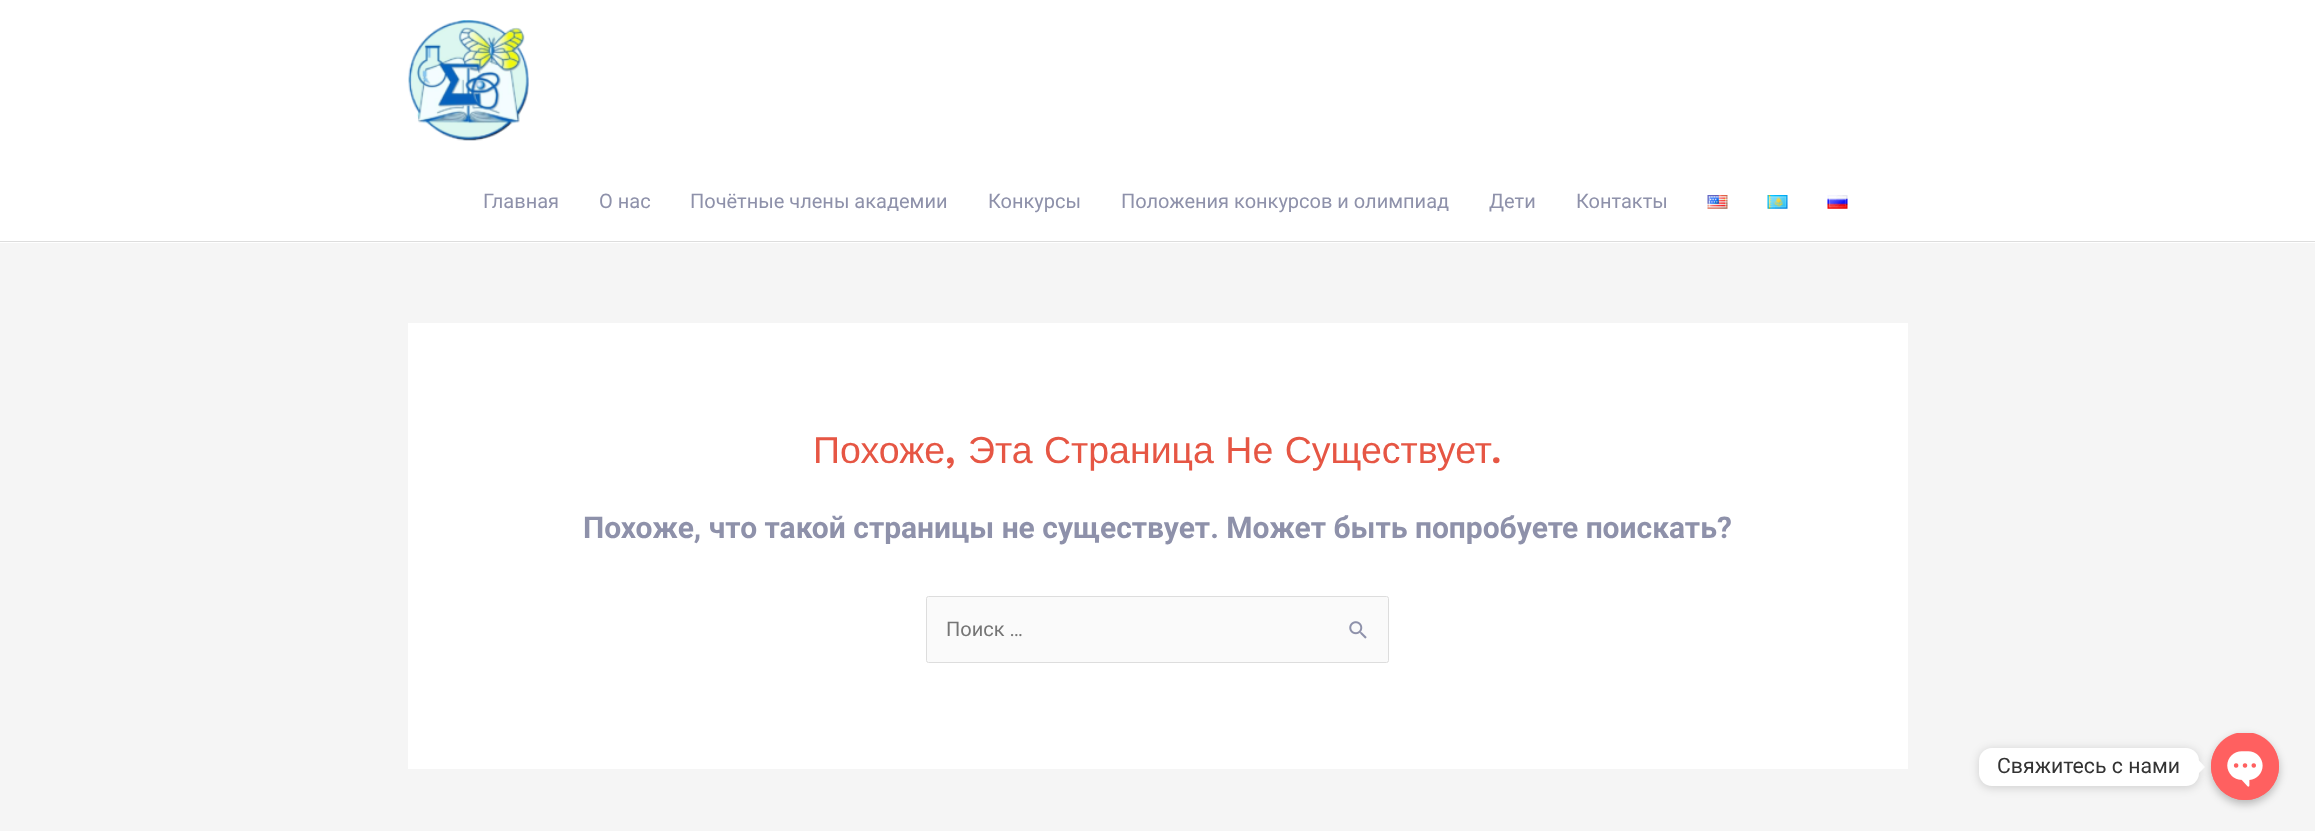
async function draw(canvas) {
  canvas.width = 2315
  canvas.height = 831
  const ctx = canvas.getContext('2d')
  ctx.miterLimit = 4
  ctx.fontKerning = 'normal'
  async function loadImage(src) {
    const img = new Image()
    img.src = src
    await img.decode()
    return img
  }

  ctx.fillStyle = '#f5f5f5'
  ctx.fillRect(0, 0, 2315, 831)
  ctx.fillStyle = '#fff'
  ctx.fillRect(0, 0, 2315, 243)
  ctx.fillStyle = '#ddd'
  ctx.fillRect(0, 241, 2315, 1)
  ctx.drawImage(await loadImage('image0.png'), 408, 20, 121, 121)
  ctx.font = '20px Roboto'
  ctx.fillStyle = '#8e91aa'
  ctx.fillText('Главная', 483, 208)
  ctx.fillText('О нас', 599, 208)
  ctx.fillText('Почётные члены академии', 690, 208)
  ctx.fillText('Конкурсы', 988, 208)
  ctx.fillText('Положения конкурсов и олимпиад', 1121, 208)
  ctx.fillText('Дети', 1489, 208)
  ctx.fillText('Контакты', 1576, 208)
  ctx.drawImage(await loadImage('image1.png'), 1707, 195, 21, 14)
  ctx.drawImage(await loadImage('image2.png'), 1767, 195, 21, 14)
  ctx.drawImage(await loadImage('image3.png'), 1827, 195, 21, 14)
  ctx.fillStyle = '#fff'
  ctx.fillRect(408, 323, 1500, 446)
  ctx.font = '37.5px Liberation Sans'
  ctx.fillStyle = '#e65644'
  ctx.fillText('Похоже', 813, 463)
  ctx.font = '600 37.5px Work Sans'
  ctx.fillText(',', 945, 463)
  ctx.wordSpacing = '1px'
  ctx.font = '37.5px Liberation Sans'
  ctx.fillText('Эта Страница Не Существует', 968, 463)
  ctx.wordSpacing = '0px'
  ctx.font = '600 37.5px Work Sans'
  ctx.fillText('.', 1491, 463)
  ctx.font = 'bold 30px Roboto'
  ctx.fillStyle = '#8e91aa'
  ctx.fillText('Похоже, что такой страницы не существует. Может быть попробуете поискать?', 583, 538)
  ctx.fillStyle = '#fafafa'
  ctx.beginPath()
  ctx.roundRect(926.5, 596.5, 462, 66, 2)
  ctx.fill()
  ctx.strokeStyle = '#ddd'
  ctx.stroke()
  ctx.font = '20px Roboto'
  ctx.fillStyle = '#757575'
  ctx.fillText('Поиск …', 946, 636)
  ctx.drawImage(await loadImage('image4.png'), 1349, 621, 18, 18)
  ctx.fillStyle = '#00000026'
  ctx.filter = 'blur(5px)'
  ctx.beginPath()
  ctx.roundRect(1979, 749, 220, 39, 13)
  ctx.fill()
  ctx.filter = 'none'
  ctx.fillStyle = '#fff'
  ctx.beginPath()
  ctx.roundRect(1979, 748, 220, 38, 13)
  ctx.fill()
  ctx.font = '21.25px Roboto'
  ctx.fillStyle = '#333'
  ctx.fillText('Свяжитесь с нами', 1997, 773)
  ctx.fillStyle = '#fff'
  ctx.beginPath()
  ctx.moveTo(2199, 773)
  ctx.lineTo(2199, 760.5)
  ctx.lineTo(2205, 767)
  ctx.closePath()
  ctx.fill()
  ctx.fillStyle = '#00000040'
  ctx.filter = 'blur(4px)'
  ctx.beginPath()
  ctx.roundRect(2211, 736, 68, 68, 34)
  ctx.fill()
  ctx.filter = 'none'
  ctx.fillStyle = '#ff6060'
  ctx.beginPath()
  ctx.roundRect(2211, 733, 68, 67, 33.5)
  ctx.fill()
  ctx.drawImage(await loadImage('image5.png'), 2211, 733, 68, 67)
}

draw(document.querySelector('canvas'))
